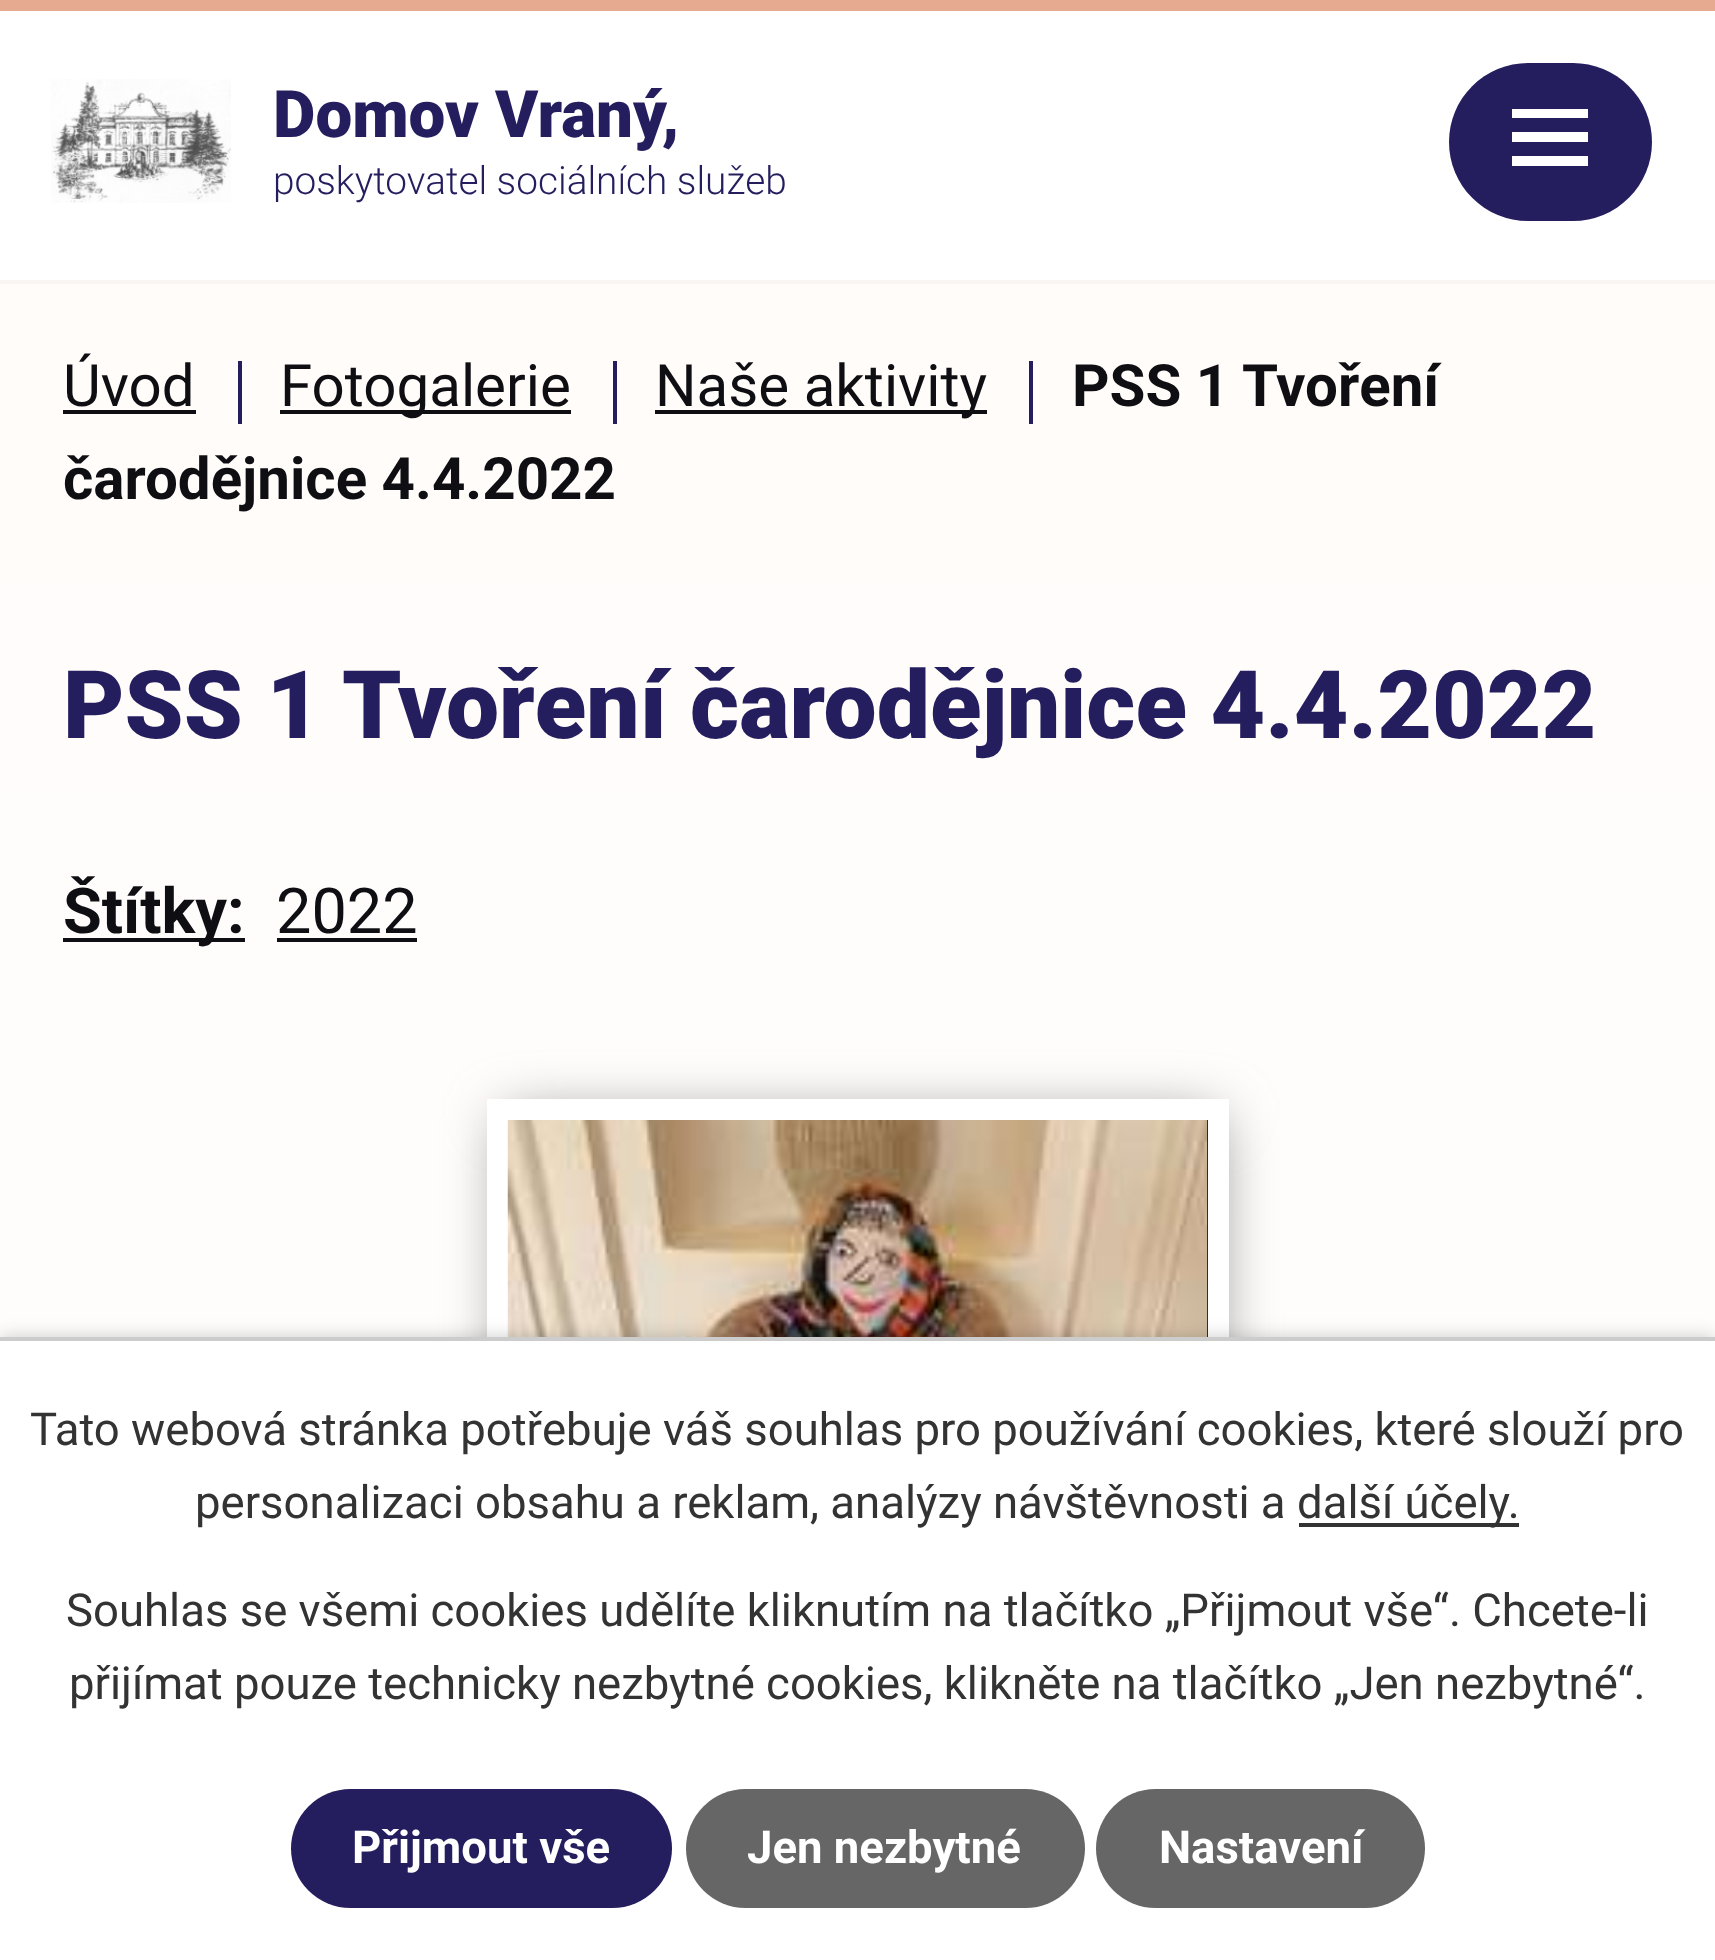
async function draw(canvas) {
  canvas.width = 1715
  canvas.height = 1960
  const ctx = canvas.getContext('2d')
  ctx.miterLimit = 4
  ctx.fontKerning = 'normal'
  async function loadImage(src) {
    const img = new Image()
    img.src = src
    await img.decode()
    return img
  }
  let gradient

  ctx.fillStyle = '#fff'
  ctx.fillRect(0, 0, 1715, 1960)
  ctx.fillStyle = '#e5aa8f'
  ctx.fillRect(0, 0, 1715, 11)
  ctx.fillStyle = '#f9f5f2'
  ctx.fillRect(0, 280, 1715, 4)
  ctx.drawImage(await loadImage('image0.png'), 51, 79, 180, 124)
  ctx.font = '900 65.5px Roboto'
  ctx.fillStyle = '#241e5e'
  ctx.fillText('Domov Vraný,', 273, 137)
  ctx.font = '300 38.75px Roboto'
  ctx.fillText('poskytovatel sociálních služeb', 273, 194)
  ctx.beginPath()
  ctx.roundRect(1449, 63, 203, 158, 79)
  ctx.fill()
  ctx.fillStyle = '#fff'
  ctx.beginPath()
  ctx.moveTo(1512, 166)
  ctx.lineTo(1512, 156)
  ctx.lineTo(1588, 156)
  ctx.lineTo(1588, 166)
  ctx.closePath()
  ctx.moveTo(1512, 109)
  ctx.lineTo(1588, 109)
  ctx.lineTo(1588, 118)
  ctx.lineTo(1512, 118)
  ctx.closePath()
  ctx.moveTo(1512, 142)
  ctx.lineTo(1512, 132)
  ctx.lineTo(1588, 132)
  ctx.lineTo(1588, 142)
  ctx.closePath()
  ctx.fill()
  gradient = ctx.createLinearGradient(857, 283, 858, 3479)
  gradient.addColorStop(0, '#fffcfa')
  gradient.addColorStop(1, '#fff')
  ctx.fillStyle = gradient
  ctx.fillRect(0, 284, 1715, 1053)
  ctx.font = '58.25px Roboto'
  ctx.fillStyle = '#0f0f13'
  ctx.fillText('Úvod', 63, 406)
  ctx.fillRect(63, 410, 133, 4)
  ctx.fillStyle = '#241e5e'
  ctx.fillRect(238, 361, 4, 63)
  ctx.fillStyle = '#0f0f13'
  ctx.fillRect(280, 410, 291, 4)
  ctx.fillText('Fotogalerie', 280, 406)
  ctx.fillStyle = '#241e5e'
  ctx.fillRect(613, 361, 4, 63)
  ctx.fillStyle = '#0f0f13'
  ctx.fillRect(655, 410, 332, 4)
  ctx.fillText('Naše aktivity', 655, 406)
  ctx.fillStyle = '#241e5e'
  ctx.fillRect(1029, 361, 4, 63)
  ctx.font = 'bold 58.25px Roboto'
  ctx.fillStyle = '#0f0f13'
  ctx.fillText('PSS 1 Tvoření', 1072, 406)
  ctx.fillText('čarodějnice 4.4.2022', 63, 499)
  ctx.font = '900 94.5px Roboto'
  ctx.fillStyle = '#241e5e'
  ctx.fillText('PSS 1 Tvoření čarodějnice 4.4.2022', 63, 738)
  ctx.fillStyle = '#0f0f13'
  ctx.fillRect(63, 938, 182, 4)
  ctx.font = 'bold 63px Roboto'
  ctx.fillText('Štítky:', 63, 933)
  ctx.font = '63px Roboto'
  ctx.fillText('2022', 276, 933)
  ctx.fillRect(277, 938, 140, 4)
  ctx.fillStyle = '#888'
  ctx.filter = 'blur(28px)'
  ctx.beginPath()
  ctx.rect(504, 1117, 714, 840)
  ctx.fill()
  ctx.filter = 'none'
  ctx.fillStyle = '#fff'
  ctx.fillRect(487, 1099, 742, 238)
  ctx.fillStyle = '#000'
  ctx.fillRect(1207, 1120, 1, 217)
  ctx.drawImage(await loadImage('image1.png'), 507, 1120, 701, 217)
  ctx.fillStyle = '#00000033'
  ctx.filter = 'blur(9px)'
  ctx.beginPath()
  ctx.rect(0, 1337, 1715, 623)
  ctx.fill()
  ctx.filter = 'none'
  ctx.fillStyle = '#fff'
  ctx.fillRect(0, 1341, 1715, 619)
  ctx.fillStyle = '#ccc'
  ctx.fillRect(0, 1337, 1715, 4)
  ctx.font = '45.5px Roboto'
  ctx.fillStyle = '#333'
  ctx.fillText('Tato webová stránka potřebuje váš souhlas pro používání cookies, které slouží pro', 30, 1445)
  ctx.fillText('personalizaci obsahu a reklam, analýzy návštěvnosti a', 195, 1518)
  ctx.fillRect(1299, 1523, 220, 4)
  ctx.fillText('další účely.', 1297, 1518)
  ctx.fillText('Souhlas se všemi cookies udělíte kliknutím na tlačítko „Přijmout vše“. Chcete-li', 66, 1626)
  ctx.fillText('přijímat pouze technicky nezbytné cookies, klikněte na tlačítko „Jen nezbytné“.', 69, 1699)
  ctx.fillStyle = '#241e5e'
  ctx.beginPath()
  ctx.roundRect(291, 1789, 381, 119, 59.5)
  ctx.fill()
  ctx.font = 'bold 45.5px Roboto'
  ctx.fillStyle = '#fff'
  ctx.fillText('Přijmout vše', 352, 1863)
  ctx.fillStyle = '#666'
  ctx.beginPath()
  ctx.roundRect(686, 1789, 399, 119, 59.5)
  ctx.fill()
  ctx.fillStyle = '#fff'
  ctx.fillText('Jen nezbytné', 747, 1863)
  ctx.fillStyle = '#666'
  ctx.beginPath()
  ctx.roundRect(1096, 1789, 329, 119, 59.5)
  ctx.fill()
  ctx.fillStyle = '#fff'
  ctx.fillText('Nastavení', 1159, 1863)
}

draw(document.querySelector('canvas'))
